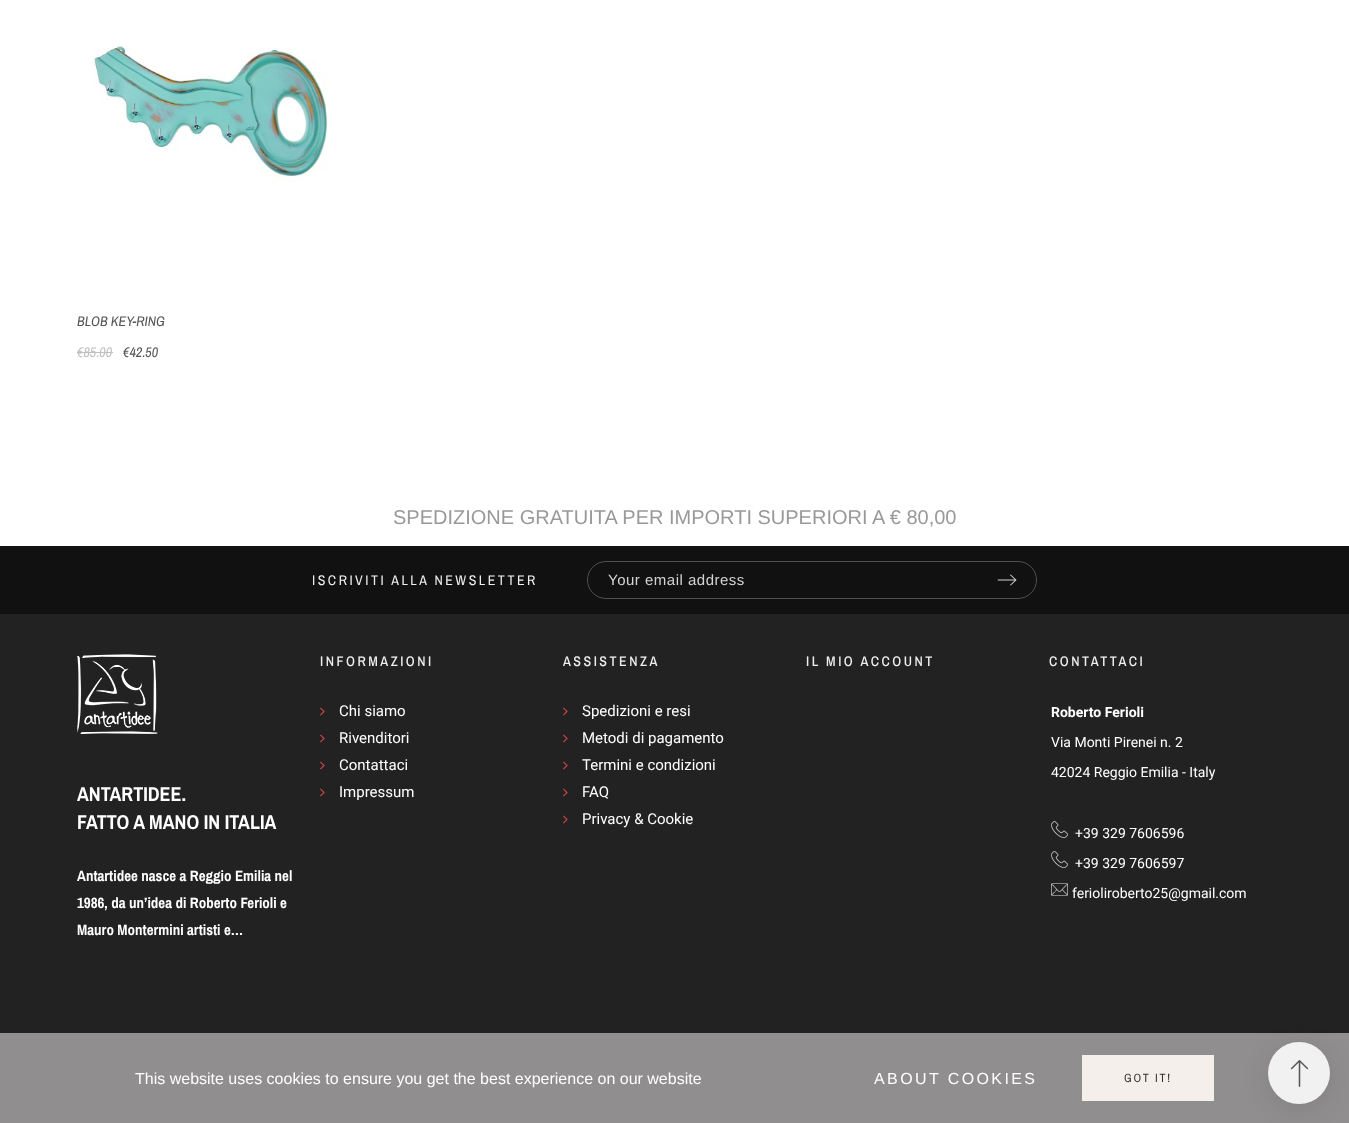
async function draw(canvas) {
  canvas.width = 1349
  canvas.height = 1123
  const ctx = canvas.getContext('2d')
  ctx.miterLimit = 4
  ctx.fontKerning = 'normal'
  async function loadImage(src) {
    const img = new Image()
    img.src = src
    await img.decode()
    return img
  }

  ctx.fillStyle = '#fff'
  ctx.fillRect(0, 0, 1349, 1123)
  ctx.drawImage(await loadImage('image0.png'), 94, 45, 235, 137)
  ctx.font = 'italic 14px Archivo Narrow'
  ctx.fillStyle = '#555'
  ctx.fillText('BLOB KEY-RING', 77, 326)
  ctx.fillStyle = '#bfbfbf'
  ctx.fillText('€85.00', 77, 357)
  ctx.fillRect(77, 352, 36, 1)
  ctx.fillStyle = '#555'
  ctx.fillText('€42.50', 123, 357)
  ctx.font = '20px Liberation Sans'
  ctx.fillStyle = '#999'
  ctx.fillText('SPEDIZIONE GRATUITA PER IMPORTI SUPERIORI A € 80,00', 393, 524)
  ctx.fillStyle = '#111'
  ctx.fillRect(0, 546, 1349, 68)
  ctx.letterSpacing = '2.5px'
  ctx.font = '14px Archivo Narrow'
  ctx.fillStyle = '#efefef'
  ctx.fillText('ISCRIVITI ALLA NEWSLETTER', 312, 585)
  ctx.beginPath()
  ctx.roundRect(587.5, 561.5, 449, 37, 18.5)
  ctx.strokeStyle = '#4f4f4f'
  ctx.stroke()
  ctx.letterSpacing = '0.5px'
  ctx.font = '15px Liberation Sans'
  ctx.fillStyle = '#d3d3d3'
  ctx.fillText('Your email address', 608, 585)
  ctx.drawImage(await loadImage('image1.png'), 997, 574, 20, 12)
  ctx.fillStyle = '#222'
  ctx.fillRect(0, 614, 1349, 419)
  ctx.drawImage(await loadImage('image2.png'), 77, 654, 81, 80)
  ctx.letterSpacing = '0px'
  ctx.font = 'bold 20px Archivo Narrow'
  ctx.fillStyle = '#fff'
  ctx.fillText('ANTARTIDEE.', 77, 801)
  ctx.fillText('FATTO A MANO IN ITALIA', 77, 829)
  ctx.font = 'bold 15px Archivo Narrow'
  ctx.fillText('Antartidee nasce a Reggio Emilia nel', 77, 881)
  ctx.fillText('1986, da un’idea di Roberto Ferioli e', 77, 908)
  ctx.fillText('Mauro Montermini artisti e…', 77, 935)
  ctx.letterSpacing = '2.5px'
  ctx.font = '500 14px Archivo Narrow'
  ctx.fillStyle = '#efefef'
  ctx.fillText('INFORMAZIONI', 320, 666)
  ctx.drawImage(await loadImage('image3.png'), 320, 707, 5, 9)
  ctx.letterSpacing = '0px'
  ctx.font = '15px Roboto'
  ctx.fillStyle = '#fff'
  ctx.fillText('Chi siamo', 339, 716)
  ctx.drawImage(await loadImage('image3.png'), 320, 734, 5, 9)
  ctx.fillText('Rivenditori', 339, 743)
  ctx.drawImage(await loadImage('image3.png'), 320, 761, 5, 9)
  ctx.fillText('Contattaci', 339, 770)
  ctx.drawImage(await loadImage('image3.png'), 320, 788, 5, 9)
  ctx.fillText('Impressum', 339, 797)
  ctx.letterSpacing = '2.5px'
  ctx.font = '500 14px Archivo Narrow'
  ctx.fillStyle = '#efefef'
  ctx.fillText('ASSISTENZA', 563, 666)
  ctx.drawImage(await loadImage('image3.png'), 563, 707, 5, 9)
  ctx.letterSpacing = '0px'
  ctx.font = '15px Roboto'
  ctx.fillStyle = '#fff'
  ctx.fillText('Spedizioni e resi', 582, 716)
  ctx.drawImage(await loadImage('image3.png'), 563, 734, 5, 9)
  ctx.fillText('Metodi di pagamento', 582, 743)
  ctx.drawImage(await loadImage('image3.png'), 563, 761, 5, 9)
  ctx.fillText('Termini e condizioni', 582, 770)
  ctx.drawImage(await loadImage('image3.png'), 563, 788, 5, 9)
  ctx.fillText('FAQ', 582, 797)
  ctx.drawImage(await loadImage('image3.png'), 563, 815, 5, 9)
  ctx.fillText('Privacy & Cookie', 582, 824)
  ctx.letterSpacing = '2.5px'
  ctx.font = '500 14px Archivo Narrow'
  ctx.fillStyle = '#efefef'
  ctx.fillText('IL MIO ACCOUNT', 806, 666)
  ctx.fillText('CONTATTACI', 1049, 666)
  ctx.letterSpacing = '0px'
  ctx.font = 'bold 14px Roboto'
  ctx.fillStyle = '#fff'
  ctx.fillText('Roberto Ferioli', 1051, 717)
  ctx.font = '14px Roboto'
  ctx.fillText('Via Monti Pirenei n. 2', 1051, 747)
  ctx.fillText('42024 Reggio Emilia - Italy', 1051, 777)
  ctx.drawImage(await loadImage('image4.png'), 1051, 821, 17, 17)
  ctx.fillText('+39 329 7606596', 1075, 838)
  ctx.drawImage(await loadImage('image4.png'), 1051, 851, 17, 17)
  ctx.fillText('+39 329 7606597', 1075, 868)
  ctx.drawImage(await loadImage('image5.png'), 1051, 883, 17, 13)
  ctx.fillText('ferioliroberto25@gmail.com', 1072, 898)
  ctx.fillStyle = '#908e8f'
  ctx.fillRect(0, 1033, 1349, 90)
  ctx.font = '16px Liberation Sans'
  ctx.fillStyle = '#fff'
  ctx.fillText('This website uses cookies to ensure you get the best experience on our website', 135, 1084)
  ctx.letterSpacing = '2.4px'
  ctx.fillText('ABOUT COOKIES', 874, 1084)
  ctx.fillStyle = '#f4efeb'
  ctx.fillRect(1082, 1055, 132, 46)
  ctx.letterSpacing = '1.75px'
  ctx.font = '12px Archivo Narrow'
  ctx.fillStyle = '#333'
  ctx.fillText('GOT IT!', 1124, 1082)
  ctx.fillStyle = '#00000017'
  ctx.filter = 'blur(13.5px)'
  ctx.beginPath()
  ctx.roundRect(1268, 1047, 62, 62, 31)
  ctx.fill()
  ctx.filter = 'none'
  ctx.fillStyle = '#f1f1f1'
  ctx.beginPath()
  ctx.arc(1299, 1073, 31, 0, 2 * Math.PI)
  ctx.fill()
  ctx.drawImage(await loadImage('image6.png'), 1290, 1060, 19, 27)
}

draw(document.querySelector('canvas'))
